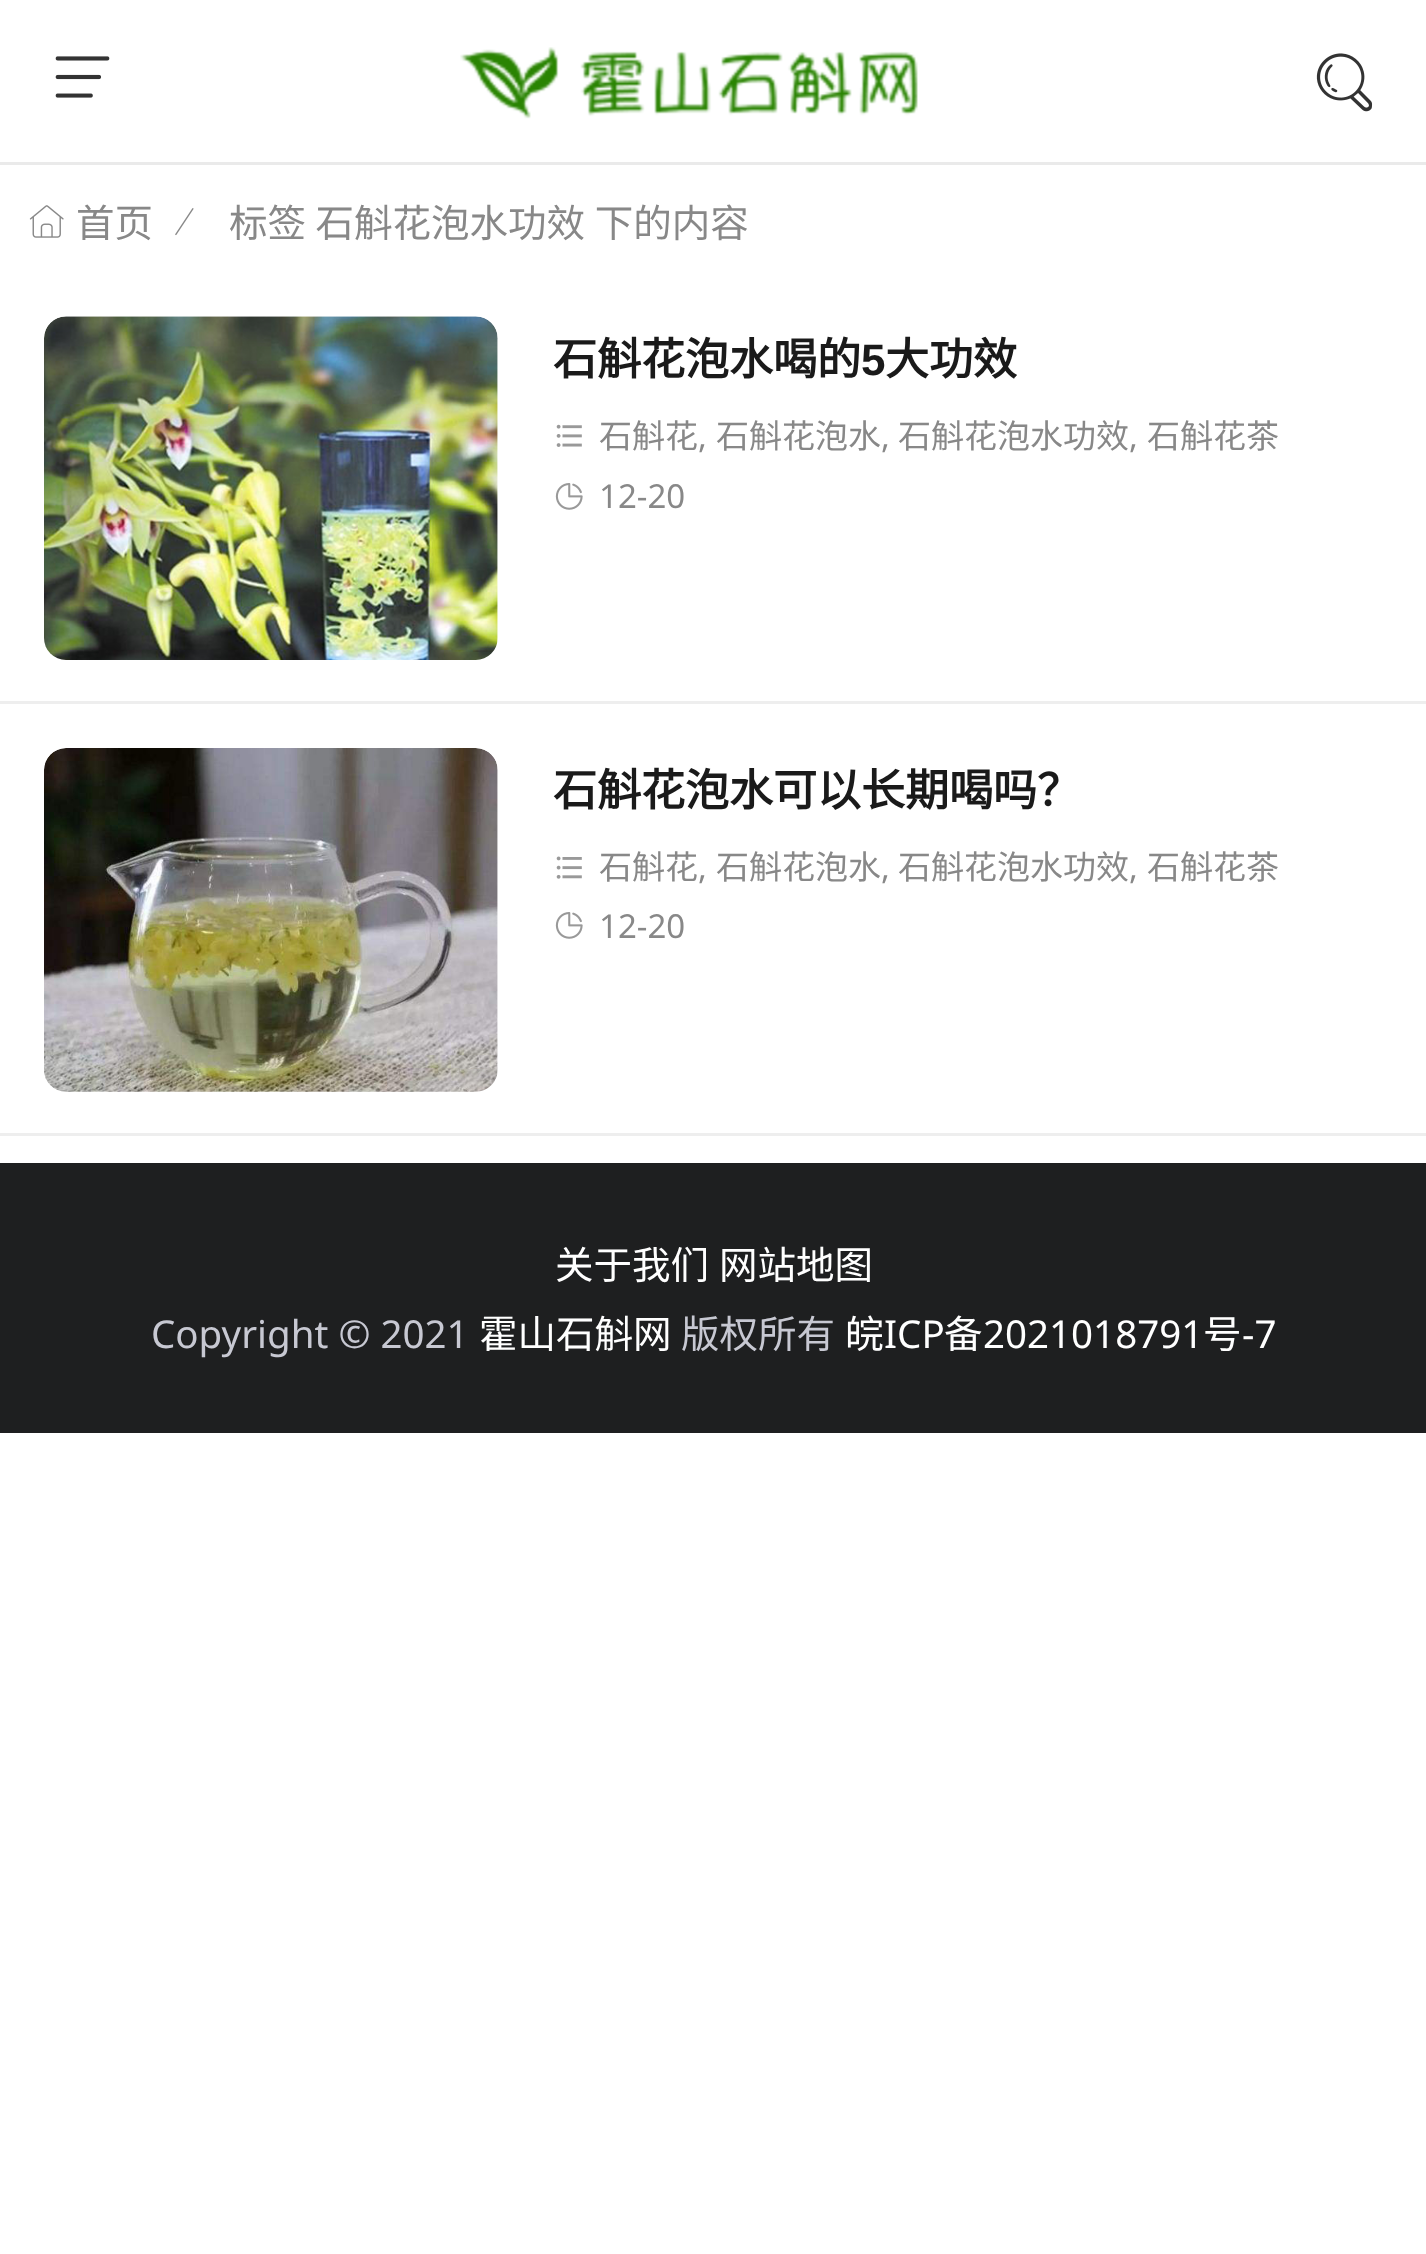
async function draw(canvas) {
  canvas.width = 1426
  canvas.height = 2254
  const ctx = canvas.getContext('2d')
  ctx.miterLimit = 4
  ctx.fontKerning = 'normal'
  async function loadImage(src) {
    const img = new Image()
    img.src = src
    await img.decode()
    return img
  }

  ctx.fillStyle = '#fff'
  ctx.fillRect(0, 0, 1426, 2254)
  ctx.fillStyle = '#eaeaea'
  ctx.fillRect(0, 162, 1426, 3)
  ctx.drawImage(await loadImage('image0.png'), 55, 56, 55, 42)
  ctx.drawImage(await loadImage('image1.png'), 460, 47, 458, 72)
  ctx.drawImage(await loadImage('image2.png'), 1316, 53, 57, 59)
  ctx.drawImage(await loadImage('image3.png'), 29, 205, 35, 33)
  ctx.font = '38.5px Noto Sans CJK SC'
  ctx.fillStyle = '#888'
  ctx.fillText('首页', 76, 237)
  ctx.drawImage(await loadImage('image4.png'), 175, 208, 19, 28)
  ctx.wordSpacing = '1px'
  ctx.fillText('标签 石斛花泡水功效 下的内容', 229, 237)
  ctx.fillStyle = '#eee'
  ctx.fillRect(0, 701, 1426, 3)
  ctx.drawImage(await loadImage('image5.png'), 44, 316, 454, 344)
  ctx.wordSpacing = '0px'
  ctx.font = 'bold 44px Noto Sans CJK SC'
  ctx.fillStyle = '#1a1a1a'
  ctx.fillText('石斛花泡水喝的', 553, 375)
  ctx.font = 'bold 44px Liberation Sans'
  ctx.fillText('5', 861, 375)
  ctx.font = 'bold 44px Noto Sans CJK SC'
  ctx.fillText('大功效', 885, 375)
  ctx.drawImage(await loadImage('image6.png'), 556, 424, 26, 23)
  ctx.font = '33px Noto Sans CJK SC'
  ctx.fillStyle = '#888'
  ctx.fillText('石斛花', 599, 448)
  ctx.fillText('石斛花泡水', 716, 448)
  ctx.fillText('石斛花泡水功效', 898, 448)
  ctx.fillText('石斛花茶', 1147, 448)
  ctx.font = '33px Noto Sans'
  ctx.fillText(',', 698, 448)
  ctx.fillText(',', 881, 448)
  ctx.fillText(',', 1129, 448)
  ctx.drawImage(await loadImage('image7.png'), 555, 483, 28, 27)
  ctx.fillText('12-20', 599, 508)
  ctx.fillStyle = '#eee'
  ctx.fillRect(0, 1133, 1426, 3)
  ctx.drawImage(await loadImage('image8.png'), 44, 748, 454, 344)
  ctx.font = 'bold 44px Noto Sans CJK SC'
  ctx.fillStyle = '#1a1a1a'
  ctx.fillText('石斛花泡水可以长期喝吗？', 553, 806)
  ctx.drawImage(await loadImage('image9.png'), 556, 856, 26, 23)
  ctx.font = '33px Noto Sans CJK SC'
  ctx.fillStyle = '#888'
  ctx.fillText('石斛花', 599, 879)
  ctx.font = '33px Noto Sans'
  ctx.fillText(',', 698, 879)
  ctx.font = '33px Noto Sans CJK SC'
  ctx.fillText('石斛花泡水', 716, 879)
  ctx.font = '33px Noto Sans'
  ctx.fillText(',', 881, 879)
  ctx.font = '33px Noto Sans CJK SC'
  ctx.fillText('石斛花泡水功效', 898, 879)
  ctx.font = '33px Noto Sans'
  ctx.fillText(',', 1129, 879)
  ctx.font = '33px Noto Sans CJK SC'
  ctx.fillText('石斛花茶', 1147, 879)
  ctx.drawImage(await loadImage('image7.png'), 555, 912, 28, 27)
  ctx.font = '33px Noto Sans'
  ctx.fillText('12-20', 599, 938)
  ctx.fillStyle = '#1e1f20'
  ctx.fillRect(0, 1163, 1426, 270)
  ctx.font = '38.5px Noto Sans CJK SC'
  ctx.fillStyle = '#fff'
  ctx.fillText('关于我们', 555, 1279)
  ctx.fillText('网站地图', 719, 1279)
  ctx.font = '38.5px Noto Sans'
  ctx.fillStyle = '#c7c8d2'
  ctx.fillText('Copyright © 2021', 151, 1348)
  ctx.font = '38.5px Noto Sans CJK SC'
  ctx.fillStyle = '#fff'
  ctx.fillText('霍山石斛网', 479, 1348)
  ctx.fillStyle = '#c7c8d2'
  ctx.fillText('版权所有', 681, 1348)
  ctx.fillStyle = '#fff'
  ctx.fillText('皖', 845, 1348)
  ctx.font = '38.5px Noto Sans'
  ctx.fillText('ICP', 884, 1348)
  ctx.font = '38.5px Noto Sans CJK SC'
  ctx.fillText('备', 944, 1348)
  ctx.font = '38.5px Noto Sans'
  ctx.fillText('2021018791', 983, 1348)
  ctx.font = '38.5px Noto Sans CJK SC'
  ctx.fillText('号', 1203, 1348)
  ctx.font = '38.5px Noto Sans'
  ctx.fillText('-7', 1242, 1348)
}

draw(document.querySelector('canvas'))
